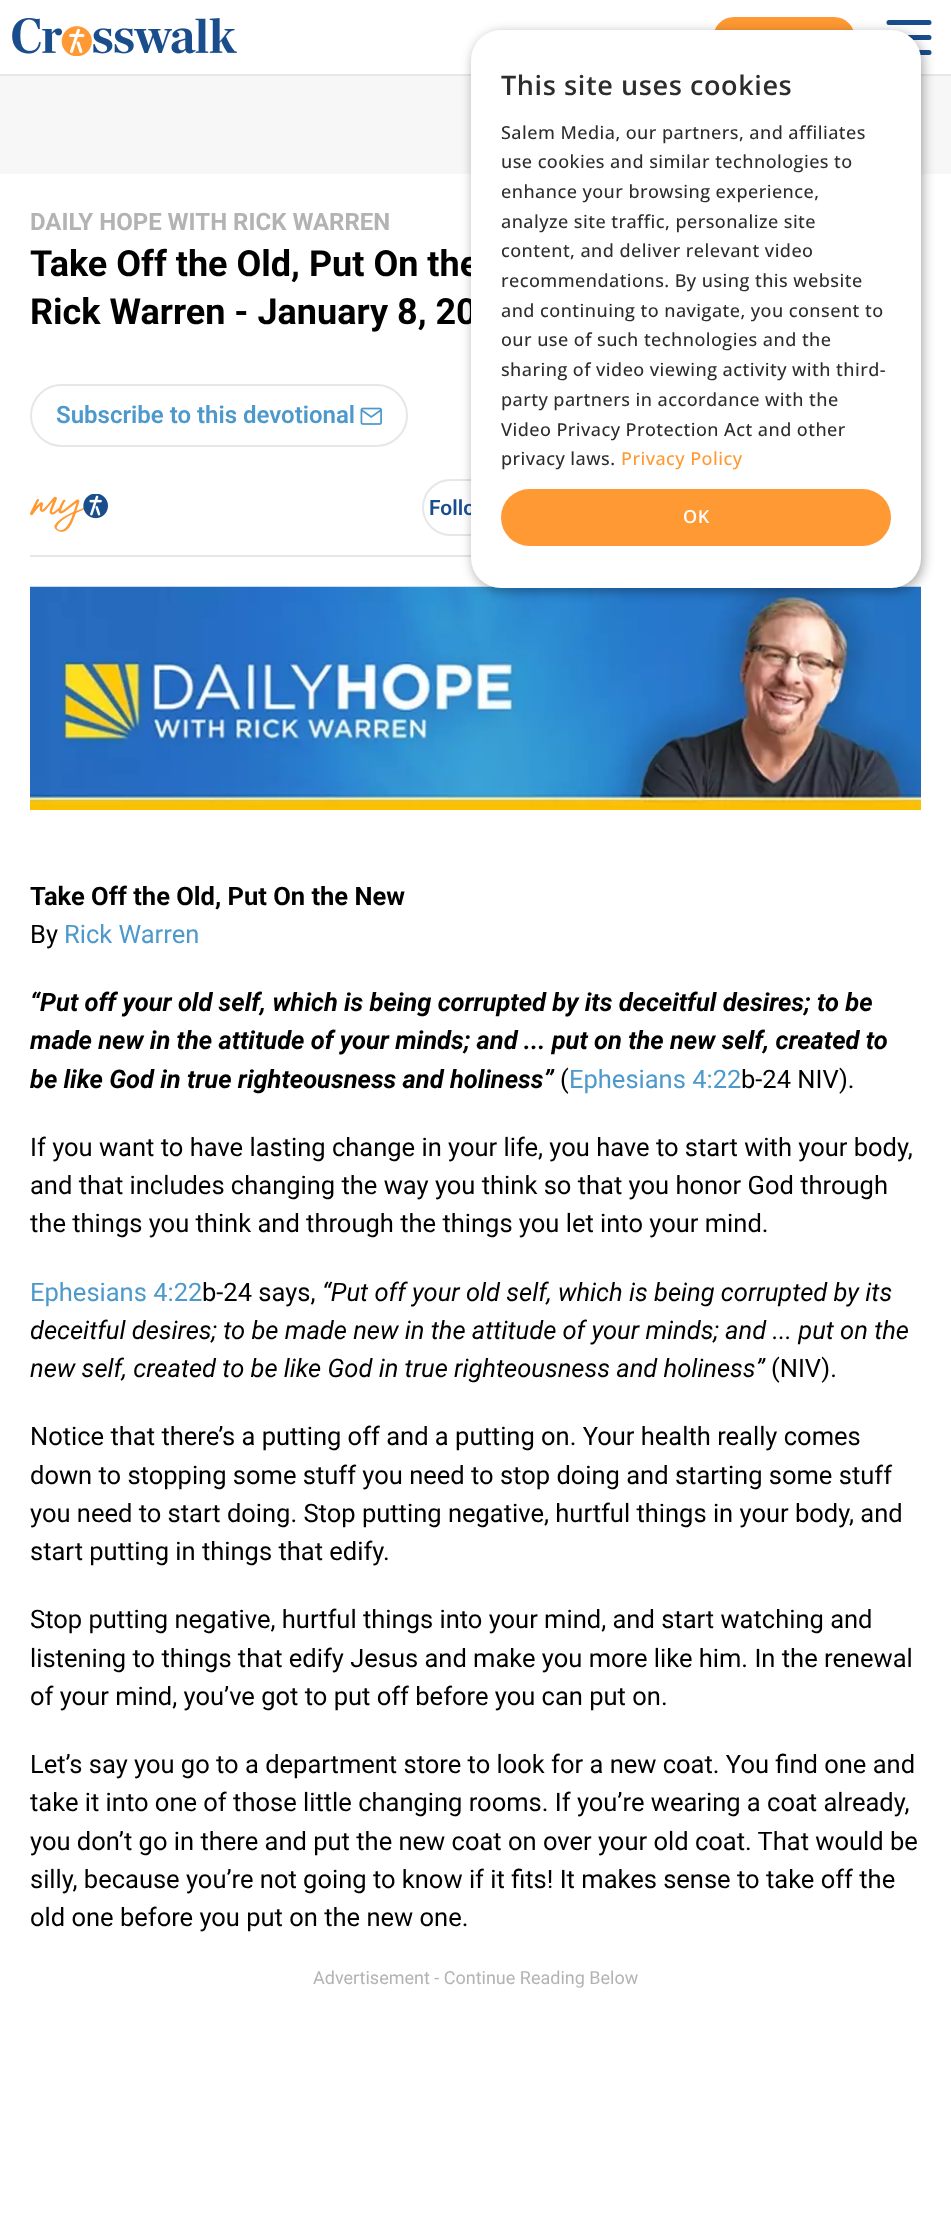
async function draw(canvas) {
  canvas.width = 951
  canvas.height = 2238
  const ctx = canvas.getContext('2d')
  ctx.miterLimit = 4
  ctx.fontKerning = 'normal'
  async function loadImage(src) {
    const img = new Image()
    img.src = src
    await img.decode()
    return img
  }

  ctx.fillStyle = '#fff'
  ctx.fillRect(0, 0, 951, 2238)
  ctx.fillStyle = '#e5e7eb'
  ctx.fillRect(0, 74, 951, 2)
  ctx.drawImage(await loadImage('image0.png'), 12, 18, 225, 38)
  ctx.fillStyle = '#f93'
  ctx.beginPath()
  ctx.roundRect(713, 17, 142, 42, 21)
  ctx.fill()
  ctx.beginPath()
  ctx.moveTo(889, 22.5)
  ctx.lineTo(929, 22.5)
  ctx.moveTo(889, 37.5)
  ctx.lineTo(929, 37.5)
  ctx.moveTo(889, 52.5)
  ctx.lineTo(929, 52.5)
  ctx.strokeStyle = '#1a4d8c'
  ctx.lineWidth = 5
  ctx.lineCap = 'round'
  ctx.lineJoin = 'round'
  ctx.stroke()
  ctx.fillStyle = '#f7f7f7'
  ctx.fillRect(0, 76, 951, 98)
  ctx.fillStyle = '#e5e7eb'
  ctx.fillRect(30, 555, 441, 2)
  ctx.beginPath()
  ctx.roundRect(423, 480, 124, 55, 27.5)
  ctx.strokeStyle = '#e5e7eb'
  ctx.lineWidth = 2
  ctx.lineJoin = 'miter'
  ctx.stroke()
  ctx.drawImage(await loadImage('image3.png'), 30, 586, 891, 224)
  ctx.fillStyle = '#00000059'
  ctx.filter = 'blur(6px)'
  ctx.beginPath()
  ctx.roundRect(473, 33, 450, 558, 30)
  ctx.fill()
  ctx.filter = 'none'
  ctx.font = 'bold 36px Roboto'
  ctx.fillStyle = '#000'
  ctx.fillText('Take Off the Old, Put On the', 30, 276)
  ctx.fillText('Rick Warren - January 8, 20', 30, 324)
  ctx.font = '600 21px Roboto'
  ctx.fillStyle = '#1a4d8c'
  ctx.fillText('Follo', 429, 515)
  ctx.fillStyle = '#fff'
  ctx.beginPath()
  ctx.roundRect(471, 30, 450, 558, 30)
  ctx.fill()
  ctx.letterSpacing = '0.6px'
  ctx.font = '600 27px Open Sans'
  ctx.fillStyle = '#2d2d2d'
  ctx.fillText('This site uses cookies', 501, 95)
  ctx.letterSpacing = '0.45px'
  ctx.font = '500 18px Open Sans'
  ctx.fillText('Salem Media, our partners, and affiliates', 501, 139)
  ctx.fillText('use cookies and similar technologies to', 501, 168)
  ctx.fillText('enhance your browsing experience,', 501, 198)
  ctx.fillText('analyze site traffic, personalize site', 501, 228)
  ctx.fillText('content, and deliver relevant video', 501, 257)
  ctx.fillText('recommendations. By using this website', 501, 287)
  ctx.fillText('and continuing to navigate, you consent to', 501, 317)
  ctx.fillText('our use of such technologies and the', 501, 346)
  ctx.fillText('sharing of video viewing activity with third-', 501, 376)
  ctx.fillText('party partners in accordance with the', 501, 406)
  ctx.fillText('Video Privacy Protection Act and other', 501, 436)
  ctx.fillText('privacy laws.', 501, 465)
  ctx.fillStyle = '#f93'
  ctx.fillText('Privacy Policy', 621, 465)
  ctx.beginPath()
  ctx.roundRect(501, 489, 390, 57, 28.5)
  ctx.fill()
  ctx.letterSpacing = '0.6px'
  ctx.font = '600 18px Open Sans'
  ctx.fillStyle = '#fff'
  ctx.fillText('OK', 683, 523)
  ctx.letterSpacing = '0px'
  ctx.font = 'bold 24px Roboto'
  ctx.fillStyle = '#b3b3b3'
  ctx.fillText('DAILY HOPE WITH RICK WARREN', 30, 230)
  ctx.beginPath()
  ctx.roundRect(31, 385, 376, 61, 30.5)
  ctx.stroke()
  ctx.font = '600 24px Roboto'
  ctx.fillStyle = '#4d99cc'
  ctx.fillText('Subscribe to this devotional', 56, 423)
  ctx.drawImage(await loadImage('image1.png'), 360, 407, 22, 18)
  ctx.drawImage(await loadImage('image2.png'), 30, 494, 78, 38)
  ctx.font = 'bold 25.5px Roboto'
  ctx.fillStyle = '#000'
  ctx.fillText('Take Off the Old, Put On the New', 30, 905)
  ctx.font = '25.5px Roboto'
  ctx.fillText('By', 30, 943)
  ctx.fillStyle = '#4d99cc'
  ctx.fillText('Rick Warren', 64, 943)
  ctx.font = 'italic bold 25.5px Roboto'
  ctx.fillStyle = '#000'
  ctx.fillText('“Put off your old self, which is being corrupted by its deceitful desires; to be', 30, 1011)
  ctx.fillText('made new in the attitude of your minds; and ... put on the new self, created to', 30, 1049)
  ctx.fillText('be like God in true righteousness and holiness”', 30, 1088)
  ctx.font = '25.5px Roboto'
  ctx.fillText('(', 560, 1088)
  ctx.fillStyle = '#4d99cc'
  ctx.fillText('Ephesians 4:22', 569, 1088)
  ctx.fillStyle = '#000'
  ctx.fillText('b-24 NIV).', 741, 1088)
  ctx.fillText('If you want to have lasting change in your life, you have to start with your body,', 30, 1156)
  ctx.fillText('and that includes changing the way you think so that you honor God through', 30, 1194)
  ctx.fillText('the things you think and through the things you let into your mind.', 30, 1232)
  ctx.fillStyle = '#4d99cc'
  ctx.fillText('Ephesians 4:22', 30, 1301)
  ctx.fillStyle = '#000'
  ctx.fillText('b-24 says,', 202, 1301)
  ctx.font = 'italic 25.5px Roboto'
  ctx.fillText('“Put off your old self, which is being corrupted by its', 322, 1301)
  ctx.fillText('deceitful desires; to be made new in the attitude of your minds; and ... put on the', 30, 1339)
  ctx.fillText('new self, created to be like God in true righteousness and holiness”', 30, 1377)
  ctx.font = '25.5px Roboto'
  ctx.fillText('(NIV).', 771, 1377)
  ctx.fillText('Notice that there’s a putting off and a putting on. Your health really comes', 30, 1445)
  ctx.fillText('down to stopping some stuff you need to stop doing and starting some stuff', 30, 1484)
  ctx.fillText('you need to start doing. Stop putting negative, hurtful things in your body, and', 30, 1522)
  ctx.fillText('start putting in things that edify.', 30, 1560)
  ctx.fillText('Stop putting negative, hurtful things into your mind, and start watching and', 30, 1628)
  ctx.fillText('listening to things that edify Jesus and make you more like him. In the renewal', 30, 1667)
  ctx.fillText('of your mind, you’ve got to put off before you can put on.', 30, 1705)
  ctx.fillText('Let’s say you go to a department store to look for a new coat. You find one and', 30, 1773)
  ctx.fillText('take it into one of those little changing rooms. If you’re wearing a coat already,', 30, 1811)
  ctx.fillText('you don’t go in there and put the new coat on over your old coat. That would be', 30, 1850)
  ctx.fillText('silly, because you’re not going to know if it fits! It makes sense to take off the', 30, 1888)
  ctx.fillText('old one before you put on the new one.', 30, 1926)
  ctx.font = '18px Roboto'
  ctx.fillStyle = '#b3b3b3'
  ctx.fillText('Advertisement - Continue Reading Below', 313, 1984)
}

draw(document.querySelector('canvas'))
